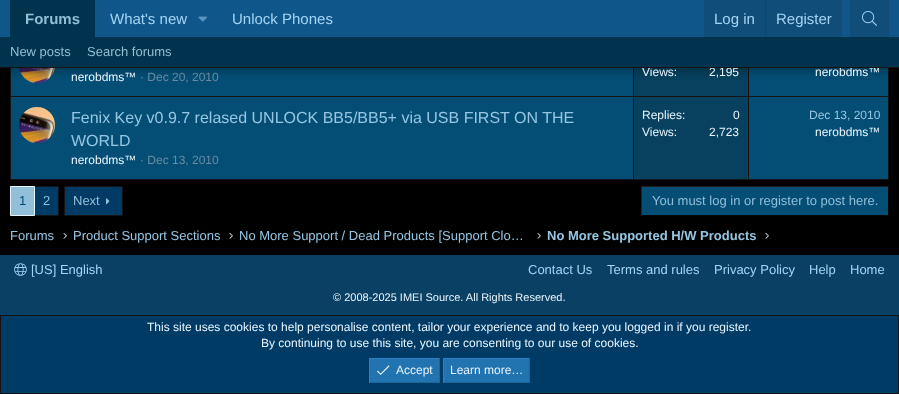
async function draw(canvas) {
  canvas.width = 899
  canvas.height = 394
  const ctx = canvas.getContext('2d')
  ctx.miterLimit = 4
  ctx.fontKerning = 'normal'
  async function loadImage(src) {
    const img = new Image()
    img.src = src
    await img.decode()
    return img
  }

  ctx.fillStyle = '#000'
  ctx.fillRect(0, 0, 899, 394)
  ctx.fillStyle = '#044e75'
  ctx.fillRect(11, 68, 877, 111)
  ctx.strokeStyle = '#141414'
  ctx.strokeRect(10.5, -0.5, 878, 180)
  ctx.drawImage(await loadImage('image2.png'), 19, 68, 36, 15)
  ctx.fillStyle = '#07415f'
  ctx.fillRect(634, 68, 114, 28)
  ctx.fillStyle = '#141414'
  ctx.fillRect(748, 68, 1, 29)
  ctx.fillRect(633, 68, 1, 29)
  ctx.fillStyle = '#0000004d'
  ctx.filter = 'blur(4px)'
  ctx.beginPath()
  ctx.rect(-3, -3, 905, 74)
  ctx.fill()
  ctx.filter = 'none'
  ctx.fillStyle = '#0f578a'
  ctx.fillRect(0, 0, 899, 37)
  ctx.fillStyle = '#02334e'
  ctx.fillRect(10, 0, 85, 37)
  ctx.font = 'bold 15px Liberation Sans'
  ctx.fillStyle = '#91bed9'
  ctx.fillText('Forums', 25, 24)
  ctx.font = '15px Liberation Sans'
  ctx.fillStyle = '#a3d4f5'
  ctx.fillText('What\'s new', 110, 24)
  ctx.drawImage(await loadImage('image0.png'), 198, 16, 9, 6)
  ctx.fillText('Unlock Phones', 232, 24)
  ctx.fillStyle = '#104d78'
  ctx.fillRect(704, 0, 138, 37)
  ctx.fillStyle = '#a3d4f5'
  ctx.fillText('Log in', 714, 24)
  ctx.fillStyle = '#114469'
  ctx.fillRect(765, 0, 1, 37)
  ctx.fillStyle = '#a3d4f5'
  ctx.fillText('Register', 776, 24)
  ctx.fillStyle = '#104d78'
  ctx.fillRect(850, 0, 39, 37)
  ctx.drawImage(await loadImage('image1.png'), 862, 11, 15, 15)
  ctx.fillStyle = '#02334e'
  ctx.fillRect(0, 37, 899, 30)
  ctx.font = '12px Liberation Sans'
  ctx.fillStyle = '#e8f4fc'
  ctx.fillText('Views:', 642, 76)
  ctx.fillText('2,195', 709, 76)
  ctx.fillText('nerobdms™', 815, 76)
  ctx.fillStyle = '#141414'
  ctx.fillRect(0, 67, 899, 1)
  ctx.font = '13px Liberation Sans'
  ctx.fillStyle = '#91bed9'
  ctx.fillText('New posts', 10, 56)
  ctx.fillText('Search forums', 87, 56)
  ctx.font = '12px Liberation Sans'
  ctx.fillStyle = '#e8f4fc'
  ctx.fillText('nerobdms™', 71, 81)
  ctx.fillStyle = '#6b8aa2'
  ctx.fillText('· Dec 20, 2010', 140, 81)
  ctx.fillStyle = '#141414'
  ctx.fillRect(11, 96, 877, 1)
  ctx.drawImage(await loadImage('image3.png'), 19, 107, 36, 36)
  ctx.font = '16px Liberation Sans'
  ctx.fillStyle = '#96c6e3'
  ctx.fillText('Fenix Key v0.9.7 relased UNLOCK BB5/BB5+ via USB FIRST ON THE', 71, 123)
  ctx.fillText('WORLD', 71, 146)
  ctx.font = '12px Liberation Sans'
  ctx.fillStyle = '#e8f4fc'
  ctx.fillText('nerobdms™', 71, 164)
  ctx.fillStyle = '#6b8aa2'
  ctx.fillText('· Dec 13, 2010', 140, 164)
  ctx.fillStyle = '#07415f'
  ctx.fillRect(634, 97, 114, 82)
  ctx.fillStyle = '#141414'
  ctx.fillRect(748, 96, 1, 83)
  ctx.fillRect(633, 96, 1, 83)
  ctx.fillStyle = '#e8f4fc'
  ctx.fillText('Replies:', 642, 119)
  ctx.fillText('0', 733, 119)
  ctx.fillText('Views:', 642, 136)
  ctx.fillText('2,723', 709, 136)
  ctx.fillStyle = '#96c6e3'
  ctx.fillText('Dec 13, 2010', 809, 119)
  ctx.fillStyle = '#e8f4fc'
  ctx.fillText('nerobdms™', 815, 136)
  ctx.fillStyle = '#91bed9'
  ctx.beginPath()
  ctx.rect(10.5, 186.5, 24, 29)
  ctx.fill()
  ctx.strokeStyle = '#e8f4fc'
  ctx.stroke()
  ctx.font = '13px Liberation Sans'
  ctx.fillStyle = '#044e75'
  ctx.fillText('1', 19, 205)
  ctx.fillStyle = '#003b66'
  ctx.fillRect(35, 187, 23, 28)
  ctx.fillStyle = '#141414'
  ctx.fillRect(35, 186, 24, 1)
  ctx.fillRect(58, 186, 1, 30)
  ctx.fillRect(35, 215, 24, 1)
  ctx.fillStyle = '#91bed9'
  ctx.fillText('2', 43, 205)
  ctx.fillStyle = '#003b66'
  ctx.beginPath()
  ctx.rect(64.5, 186.5, 58, 29)
  ctx.fill()
  ctx.strokeStyle = '#141414'
  ctx.stroke()
  ctx.fillStyle = '#91bed9'
  ctx.fillText('Next', 73, 205)
  ctx.drawImage(await loadImage('image4.png'), 106, 198, 4, 7)
  ctx.fillStyle = '#044e75'
  ctx.fillRect(642, 187, 246, 28)
  ctx.fillStyle = '#212121'
  ctx.fillRect(641, 186, 248, 1)
  ctx.fillStyle = '#080808'
  ctx.fillRect(888, 186, 1, 30)
  ctx.fillRect(641, 215, 248, 1)
  ctx.fillStyle = '#212121'
  ctx.fillRect(641, 186, 1, 30)
  ctx.fillStyle = '#91bed9'
  ctx.fillText('You must log in or register to post here.', 652, 205)
  ctx.fillStyle = '#96c6e3'
  ctx.fillText('Forums', 10, 240)
  ctx.drawImage(await loadImage('image5.png'), 63, 233, 4, 6)
  ctx.fillText('Product Support Sections', 73, 240)
  ctx.drawImage(await loadImage('image5.png'), 229, 233, 4, 6)
  ctx.fillText('No More Support / Dead Products [Support Clo…', 239, 240)
  ctx.drawImage(await loadImage('image5.png'), 537, 233, 4, 6)
  ctx.font = 'bold 13px Liberation Sans'
  ctx.fillText('No More Supported H/W Products', 547, 240)
  ctx.drawImage(await loadImage('image5.png'), 765, 233, 4, 6)
  ctx.fillStyle = '#0b4065'
  ctx.fillRect(0, 255, 899, 60)
  ctx.drawImage(await loadImage('image6.png'), 14, 263, 13, 13)
  ctx.font = '13px Liberation Sans'
  ctx.fillStyle = '#a3d4f5'
  ctx.fillText('[US] English', 31, 274)
  ctx.fillText('Contact Us', 528, 274)
  ctx.fillText('Terms and rules', 607, 274)
  ctx.fillText('Privacy Policy', 714, 274)
  ctx.fillText('Help', 809, 274)
  ctx.fillText('Home', 850, 274)
  ctx.font = '11px Liberation Sans'
  ctx.fillStyle = '#e8f4fc'
  ctx.fillText('© 2008-2025 IMEI Source. All Rights Reserved.', 333, 301)
  ctx.fillStyle = '#003b66'
  ctx.beginPath()
  ctx.rect(0.5, 315.5, 898, 78)
  ctx.fill()
  ctx.stroke()
  ctx.font = '12px Liberation Sans'
  ctx.fillStyle = '#e8f4fc'
  ctx.fillText('This site uses cookies to help personalise content, tailor your experience and to keep you logged in if you register.', 147, 331)
  ctx.fillText('By continuing to use this site, you are consenting to our use of cookies.', 261, 347)
  ctx.fillStyle = '#2174af'
  ctx.fillRect(370, 359, 69, 23)
  ctx.fillStyle = '#2582c4'
  ctx.fillRect(369, 358, 71, 1)
  ctx.fillStyle = '#1d669a'
  ctx.fillRect(439, 358, 1, 25)
  ctx.fillRect(369, 382, 71, 1)
  ctx.fillStyle = '#2582c4'
  ctx.fillRect(369, 358, 1, 25)
  ctx.drawImage(await loadImage('image7.png'), 377, 365, 13, 10)
  ctx.fillStyle = '#e8f4fc'
  ctx.fillText('Accept', 396, 374)
  ctx.fillStyle = '#2174af'
  ctx.fillRect(444, 359, 85, 23)
  ctx.fillStyle = '#2582c4'
  ctx.fillRect(443, 358, 87, 1)
  ctx.fillStyle = '#1d669a'
  ctx.fillRect(529, 358, 1, 25)
  ctx.fillRect(443, 382, 87, 1)
  ctx.fillStyle = '#2582c4'
  ctx.fillRect(443, 358, 1, 25)
  ctx.fillStyle = '#e8f4fc'
  ctx.fillText('Learn more…', 450, 374)
}

draw(document.querySelector('canvas'))
